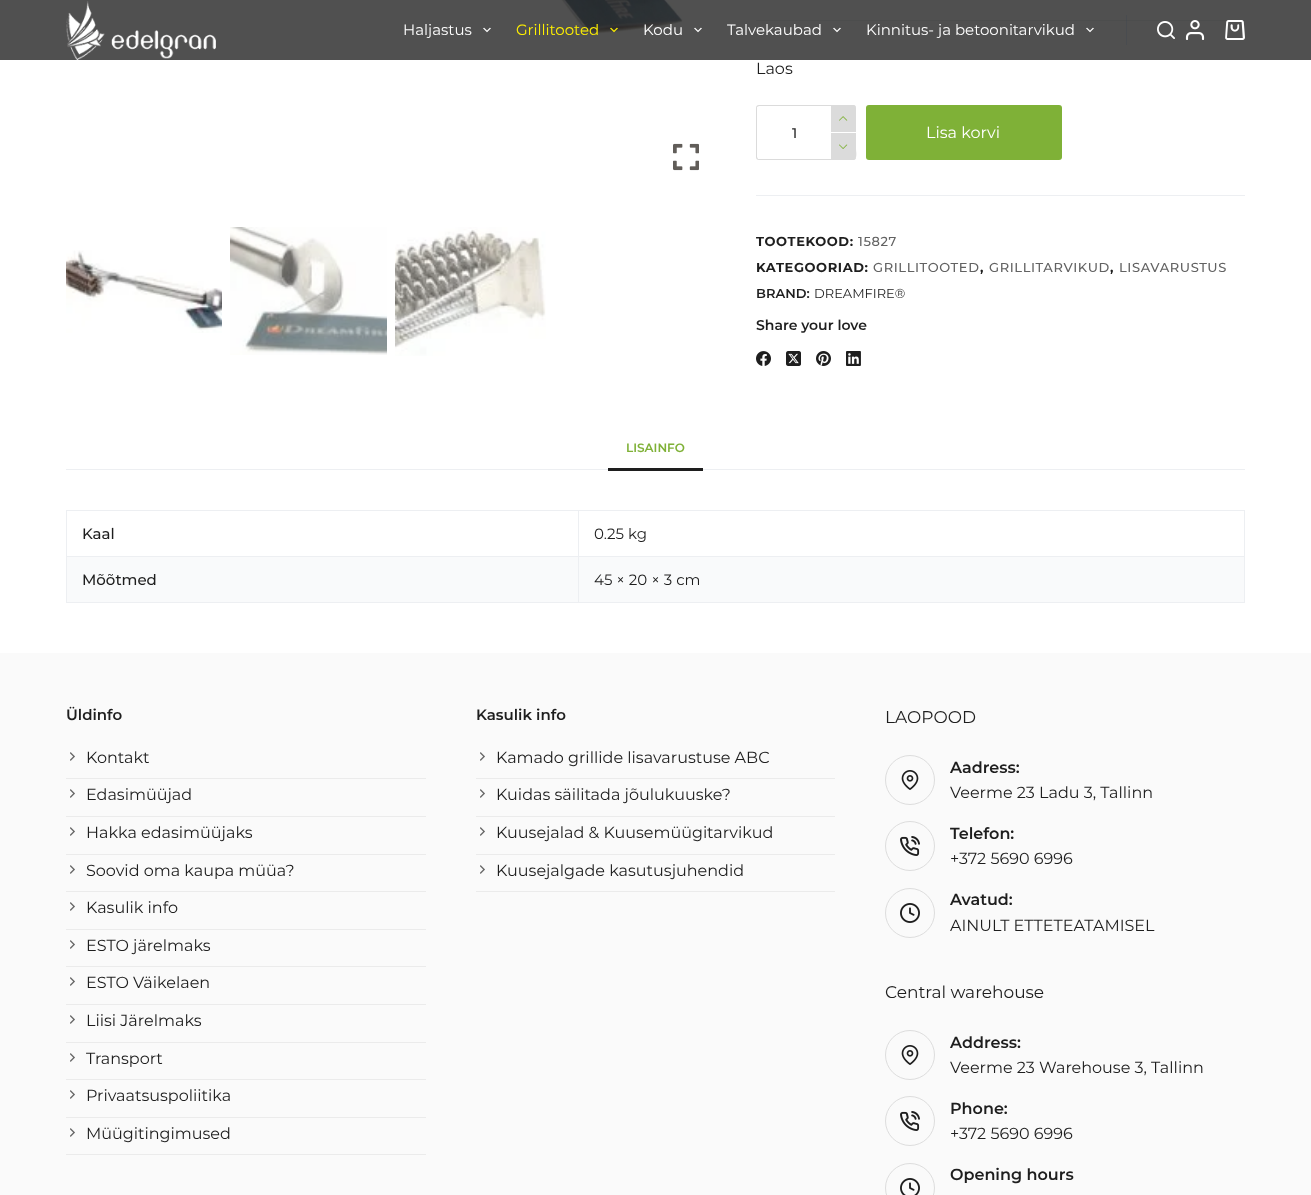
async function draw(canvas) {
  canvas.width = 1311
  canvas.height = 1195
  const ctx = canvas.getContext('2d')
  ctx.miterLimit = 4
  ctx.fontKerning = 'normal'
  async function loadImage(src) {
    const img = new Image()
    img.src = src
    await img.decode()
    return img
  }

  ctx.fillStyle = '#fff'
  ctx.fillRect(0, 0, 1311, 1195)
  ctx.fillStyle = '#505050'
  ctx.fillRect(0, 0, 1311, 60)
  ctx.fillStyle = '#494c50'
  ctx.fillRect(1126, 15, 1, 30)
  ctx.drawImage(await loadImage('image0.png'), 66, 1, 150, 59)
  ctx.font = '15px Montserrat'
  ctx.fillStyle = '#fff'
  ctx.fillText('Haljastus', 403, 35)
  ctx.drawImage(await loadImage('image1.png'), 483, 27, 8, 6)
  ctx.drawImage(await loadImage('image6.png'), 560, 0, 123, 35)
  ctx.fillStyle = '#fff000'
  ctx.fillText('Grillitooted', 516, 35)
  ctx.drawImage(await loadImage('image2.png'), 610, 27, 8, 6)
  ctx.fillStyle = '#fff'
  ctx.fillText('Kodu', 643, 35)
  ctx.drawImage(await loadImage('image1.png'), 694, 27, 8, 6)
  ctx.fillText('Talvekaubad', 727, 35)
  ctx.drawImage(await loadImage('image1.png'), 833, 27, 8, 6)
  ctx.fillText('Kinnitus- ja betoonitarvikud', 866, 35)
  ctx.drawImage(await loadImage('image1.png'), 1086, 27, 8, 6)
  ctx.drawImage(await loadImage('image3.png'), 1157, 21, 18, 18)
  ctx.fillStyle = '#4c4d4d'
  ctx.fillRect(756, 20, 489, 1)
  ctx.drawImage(await loadImage('image4.png'), 1185, 20, 20, 20)
  ctx.drawImage(await loadImage('image5.png'), 1225, 20, 20, 20)
  ctx.drawImage(await loadImage('image7.png'), 673, 143, 26, 28)
  ctx.drawImage(await loadImage('image8.png'), 66, 250, 156, 83)
  ctx.drawImage(await loadImage('image9.png'), 230, 227, 157, 128)
  ctx.drawImage(await loadImage('image10.png'), 395, 227, 151, 129)
  ctx.fillStyle = '#464a4e'
  ctx.fillRect(1126, 20, 1, 1)
  ctx.font = '16px Montserrat'
  ctx.fillStyle = '#1e1e1e'
  ctx.fillText('Laos', 756, 74)
  ctx.fillStyle = '#dbdbdb'
  ctx.beginPath()
  ctx.moveTo(759, 105)
  ctx.lineTo(853, 105)
  ctx.bezierCurveTo(855, 105, 856, 106, 856, 108)
  ctx.lineTo(856, 157)
  ctx.bezierCurveTo(856, 159, 855, 160, 853, 160)
  ctx.lineTo(759, 160)
  ctx.bezierCurveTo(757, 160, 756, 159, 756, 157)
  ctx.lineTo(756, 108)
  ctx.bezierCurveTo(756, 106, 757, 105, 759, 105)
  ctx.closePath()
  ctx.moveTo(759, 106)
  ctx.lineTo(855, 106)
  ctx.lineTo(856, 108)
  ctx.lineTo(856, 149)
  ctx.bezierCurveTo(856, 152, 858, 159, 853, 159)
  ctx.lineTo(758, 159)
  ctx.lineTo(757, 157)
  ctx.lineTo(757, 107)
  ctx.closePath()
  ctx.fill('evenodd')
  ctx.font = '500 14px Montserrat'
  ctx.fillStyle = '#1e1e1e'
  ctx.fillText('1', 792, 138)
  ctx.fillStyle = '#dbdbdb'
  ctx.beginPath()
  ctx.roundRect(831, 105, 25, 27, [0, 3, 0, 0])
  ctx.fill()
  ctx.drawImage(await loadImage('image11.png'), 839, 116, 9, 5)
  ctx.beginPath()
  ctx.roundRect(831, 133, 25, 27, [0, 0, 3, 0])
  ctx.fill()
  ctx.drawImage(await loadImage('image12.png'), 839, 144, 9, 5)
  ctx.fillStyle = '#7fb137'
  ctx.beginPath()
  ctx.roundRect(866, 105, 196, 55, 3)
  ctx.fill()
  ctx.font = '16px Montserrat'
  ctx.fillStyle = '#fff'
  ctx.fillText('Lisa korvi', 926, 138)
  ctx.fillStyle = '#edeff2'
  ctx.fillRect(756, 195, 489, 1)
  ctx.letterSpacing = '0.6px'
  ctx.font = 'bold 13px Montserrat'
  ctx.fillStyle = '#1e1e1e'
  ctx.fillText('TOOTEKOOD:', 756, 246)
  ctx.font = '500 13px Montserrat'
  ctx.fillStyle = '#626262'
  ctx.fillText('15827', 858, 246)
  ctx.font = 'bold 13px Montserrat'
  ctx.fillStyle = '#1e1e1e'
  ctx.fillText('KATEGOORIAD:', 756, 272)
  ctx.font = '500 13px Montserrat'
  ctx.fillStyle = '#626262'
  ctx.fillText('GRILLITOOTED', 873, 272)
  ctx.font = 'bold 13px Montserrat'
  ctx.fillStyle = '#1e1e1e'
  ctx.fillText(',', 980, 272)
  ctx.font = '500 13px Montserrat'
  ctx.fillStyle = '#626262'
  ctx.fillText('GRILLITARVIKUD', 989, 272)
  ctx.font = 'bold 13px Montserrat'
  ctx.fillStyle = '#1e1e1e'
  ctx.fillText(',', 1110, 272)
  ctx.font = '500 13px Montserrat'
  ctx.fillStyle = '#626262'
  ctx.fillText('LISAVARUSTUS', 1119, 272)
  ctx.letterSpacing = '0px'
  ctx.font = '600 13px Montserrat'
  ctx.fillStyle = '#1e1e1e'
  ctx.fillText('BRAND:', 756, 298)
  ctx.font = '13px Montserrat'
  ctx.fillText('DREAMFIRE®', 814, 298)
  ctx.font = '600 14px Montserrat'
  ctx.fillText('Share your love', 756, 330)
  ctx.drawImage(await loadImage('image13.png'), 756, 351, 15, 15)
  ctx.drawImage(await loadImage('image14.png'), 786, 351, 15, 15)
  ctx.drawImage(await loadImage('image15.png'), 816, 351, 15, 15)
  ctx.drawImage(await loadImage('image16.png'), 846, 351, 15, 15)
  ctx.fillStyle = '#edeff2'
  ctx.fillRect(66, 469, 1179, 1)
  ctx.font = '600 12px Montserrat'
  ctx.fillStyle = '#7fb137'
  ctx.fillText('LISAINFO', 626, 452)
  ctx.fillStyle = '#1e1e1e'
  ctx.fillRect(608, 468, 95, 3)
  ctx.fillStyle = '#edeff2'
  ctx.fillRect(66, 510, 1179, 1)
  ctx.fillRect(1244, 510, 1, 93)
  ctx.fillRect(66, 602, 1179, 1)
  ctx.fillRect(66, 510, 1, 93)
  ctx.font = '500 15px Montserrat'
  ctx.fillStyle = '#1e1e1e'
  ctx.fillText('Kaal', 82, 539)
  ctx.fillStyle = '#edeff2'
  ctx.fillRect(578, 556, 667, 1)
  ctx.fillRect(578, 556, 1, 47)
  ctx.fillRect(66, 556, 513, 1)
  ctx.fillRect(578, 510, 1, 47)
  ctx.font = '15px Montserrat'
  ctx.fillStyle = '#1e1e1e'
  ctx.fillText('0.25 kg', 594, 539)
  ctx.fillStyle = '#f9fafb'
  ctx.fillRect(67, 557, 511, 45)
  ctx.font = '500 15px Montserrat'
  ctx.fillStyle = '#1e1e1e'
  ctx.fillText('Mõõtmed', 82, 585)
  ctx.fillStyle = '#f9fafb'
  ctx.fillRect(579, 557, 665, 45)
  ctx.font = '15px Montserrat'
  ctx.fillStyle = '#1e1e1e'
  ctx.fillText('45 × 20 × 3 cm', 594, 585)
  ctx.fillStyle = '#fafafa'
  ctx.fillRect(0, 653, 1311, 542)
  ctx.font = '600 15px Montserrat'
  ctx.fillStyle = '#1e1e1e'
  ctx.fillText('Üldinfo', 66, 720)
  ctx.fillStyle = '#ebebeb'
  ctx.fillRect(66, 778, 360, 1)
  ctx.drawImage(await loadImage('image17.png'), 70, 752, 5, 9)
  ctx.font = '16px Montserrat'
  ctx.fillStyle = '#1e1e1e'
  ctx.fillText('Kontakt', 86, 763)
  ctx.fillStyle = '#ebebeb'
  ctx.fillRect(66, 816, 360, 1)
  ctx.drawImage(await loadImage('image17.png'), 70, 789, 5, 9)
  ctx.fillStyle = '#1e1e1e'
  ctx.fillText('Edasimüüjad', 86, 800)
  ctx.fillStyle = '#ebebeb'
  ctx.fillRect(66, 854, 360, 1)
  ctx.drawImage(await loadImage('image17.png'), 70, 827, 5, 9)
  ctx.fillStyle = '#1e1e1e'
  ctx.fillText('Hakka edasimüüjaks', 86, 838)
  ctx.fillStyle = '#ebebeb'
  ctx.fillRect(66, 891, 360, 1)
  ctx.drawImage(await loadImage('image17.png'), 70, 865, 5, 9)
  ctx.fillStyle = '#1e1e1e'
  ctx.fillText('Soovid oma kaupa müüa?', 86, 876)
  ctx.fillStyle = '#ebebeb'
  ctx.fillRect(66, 929, 360, 1)
  ctx.drawImage(await loadImage('image17.png'), 70, 902, 5, 9)
  ctx.fillStyle = '#1e1e1e'
  ctx.fillText('Kasulik info', 86, 913)
  ctx.fillStyle = '#ebebeb'
  ctx.fillRect(66, 966, 360, 1)
  ctx.drawImage(await loadImage('image17.png'), 70, 940, 5, 9)
  ctx.fillStyle = '#1e1e1e'
  ctx.fillText('ESTO järelmaks', 86, 951)
  ctx.fillStyle = '#ebebeb'
  ctx.fillRect(66, 1004, 360, 1)
  ctx.drawImage(await loadImage('image17.png'), 70, 977, 5, 9)
  ctx.fillStyle = '#1e1e1e'
  ctx.fillText('ESTO Väikelaen', 86, 988)
  ctx.fillStyle = '#ebebeb'
  ctx.fillRect(66, 1042, 360, 1)
  ctx.drawImage(await loadImage('image17.png'), 70, 1015, 5, 9)
  ctx.fillStyle = '#1e1e1e'
  ctx.fillText('Liisi Järelmaks', 86, 1026)
  ctx.fillStyle = '#ebebeb'
  ctx.fillRect(66, 1079, 360, 1)
  ctx.drawImage(await loadImage('image17.png'), 70, 1053, 5, 9)
  ctx.fillStyle = '#1e1e1e'
  ctx.fillText('Transport', 86, 1064)
  ctx.fillStyle = '#ebebeb'
  ctx.fillRect(66, 1117, 360, 1)
  ctx.drawImage(await loadImage('image17.png'), 70, 1090, 5, 9)
  ctx.fillStyle = '#1e1e1e'
  ctx.fillText('Privaatsuspoliitika', 86, 1101)
  ctx.fillStyle = '#ebebeb'
  ctx.fillRect(66, 1154, 360, 1)
  ctx.drawImage(await loadImage('image17.png'), 70, 1128, 5, 9)
  ctx.fillStyle = '#1e1e1e'
  ctx.fillText('Müügitingimused', 86, 1139)
  ctx.font = '600 15px Montserrat'
  ctx.fillText('Kasulik info', 476, 720)
  ctx.fillStyle = '#ebebeb'
  ctx.fillRect(476, 778, 359, 1)
  ctx.drawImage(await loadImage('image17.png'), 480, 752, 5, 9)
  ctx.font = '16px Montserrat'
  ctx.fillStyle = '#1e1e1e'
  ctx.fillText('Kamado grillide lisavarustuse ABC', 496, 763)
  ctx.fillStyle = '#ebebeb'
  ctx.fillRect(476, 816, 359, 1)
  ctx.drawImage(await loadImage('image17.png'), 480, 789, 5, 9)
  ctx.fillStyle = '#1e1e1e'
  ctx.fillText('Kuidas säilitada jõulukuuske?', 496, 800)
  ctx.fillStyle = '#ebebeb'
  ctx.fillRect(476, 854, 359, 1)
  ctx.drawImage(await loadImage('image17.png'), 480, 827, 5, 9)
  ctx.fillStyle = '#1e1e1e'
  ctx.fillText('Kuusejalad & Kuusemüügitarvikud', 496, 838)
  ctx.fillStyle = '#ebebeb'
  ctx.fillRect(476, 891, 359, 1)
  ctx.drawImage(await loadImage('image17.png'), 480, 865, 5, 9)
  ctx.fillStyle = '#1e1e1e'
  ctx.fillText('Kuusejalgade kasutusjuhendid', 496, 876)
  ctx.font = '17px Montserrat'
  ctx.fillText('LAOPOOD', 885, 723)
  ctx.beginPath()
  ctx.arc(910, 780, 24.5, 0, 2 * Math.PI)
  ctx.strokeStyle = '#ddd'
  ctx.stroke()
  ctx.drawImage(await loadImage('image18.png'), 901, 770, 18, 20)
  ctx.font = '600 16px Montserrat'
  ctx.fillText('Aadress:', 950, 773)
  ctx.font = '16px Montserrat'
  ctx.fillText('Veerme 23 Ladu 3, Tallinn', 950, 798)
  ctx.beginPath()
  ctx.arc(910, 846, 24.5, 0, 2 * Math.PI)
  ctx.stroke()
  ctx.drawImage(await loadImage('image19.png'), 900, 836, 20, 20)
  ctx.font = '600 16px Montserrat'
  ctx.fillText('Telefon:', 950, 839)
  ctx.font = '16px Montserrat'
  ctx.fillText('+372 5690 6996', 950, 864)
  ctx.beginPath()
  ctx.arc(910, 913, 24.5, 0, 2 * Math.PI)
  ctx.stroke()
  ctx.drawImage(await loadImage('image20.png'), 900, 903, 20, 20)
  ctx.font = '600 16px Montserrat'
  ctx.fillText('Avatud:', 950, 905)
  ctx.font = '16px Montserrat'
  ctx.fillText('AINULT ETTETEATAMISEL', 950, 931)
  ctx.font = '17px Montserrat'
  ctx.fillText('Central warehouse', 885, 998)
  ctx.beginPath()
  ctx.arc(910, 1055, 24.5, 0, 2 * Math.PI)
  ctx.stroke()
  ctx.drawImage(await loadImage('image18.png'), 901, 1045, 18, 20)
  ctx.font = '600 16px Montserrat'
  ctx.fillText('Address:', 950, 1048)
  ctx.font = '16px Montserrat'
  ctx.fillText('Veerme 23 Warehouse 3, Tallinn', 950, 1073)
  ctx.beginPath()
  ctx.arc(910, 1121, 24.5, 0, 2 * Math.PI)
  ctx.stroke()
  ctx.drawImage(await loadImage('image19.png'), 900, 1111, 20, 20)
  ctx.font = '600 16px Montserrat'
  ctx.fillText('Phone:', 950, 1114)
  ctx.font = '16px Montserrat'
  ctx.fillText('+372 5690 6996', 950, 1139)
  ctx.beginPath()
  ctx.arc(910, 1188, 24.5, 0, 2 * Math.PI)
  ctx.stroke()
  ctx.drawImage(await loadImage('image21.png'), 900, 1178, 20, 17)
  ctx.font = '600 16px Montserrat'
  ctx.fillText('Opening hours', 950, 1180)
}

draw(document.querySelector('canvas'))
